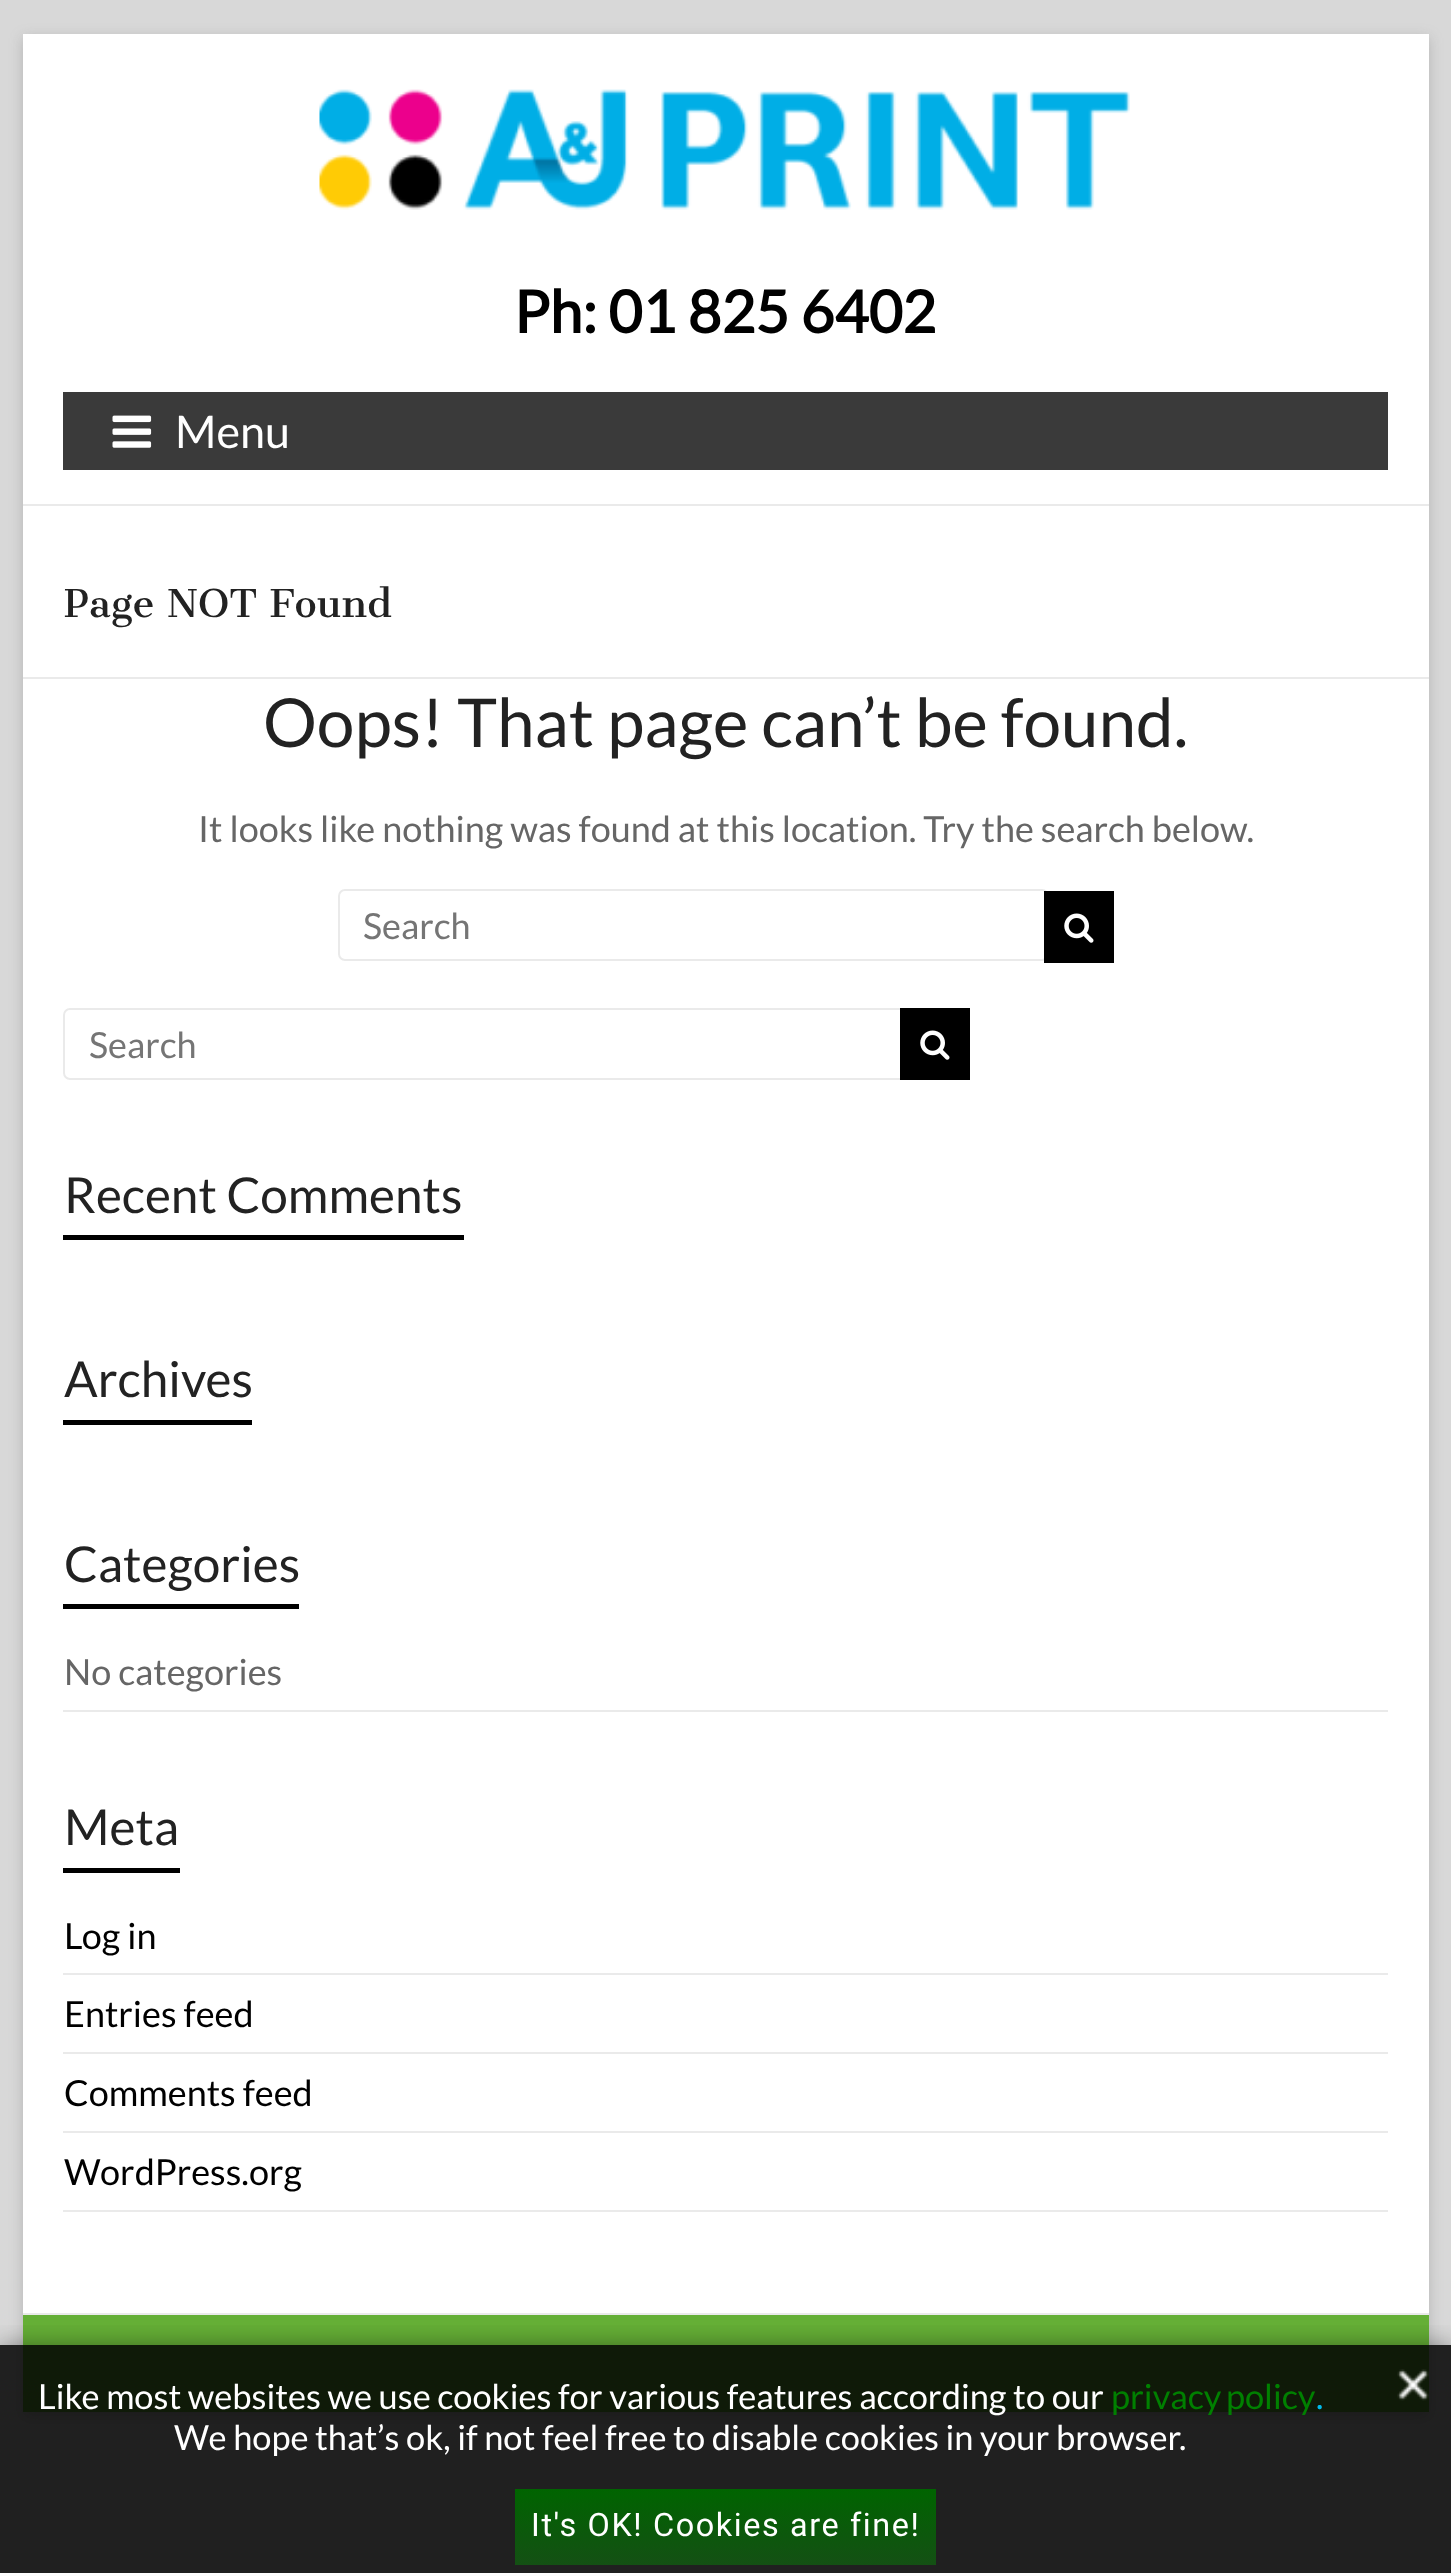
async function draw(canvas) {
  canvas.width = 1451
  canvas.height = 2573
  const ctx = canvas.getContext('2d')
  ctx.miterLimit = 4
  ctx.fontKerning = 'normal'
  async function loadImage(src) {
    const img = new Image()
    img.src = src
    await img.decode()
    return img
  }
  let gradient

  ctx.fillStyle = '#d8d8d8'
  ctx.fillRect(0, 0, 1451, 2573)
  ctx.fillStyle = '#6464644d'
  ctx.filter = 'blur(7px)'
  ctx.beginPath()
  ctx.rect(23, 38, 1406, 2379)
  ctx.fill()
  ctx.filter = 'none'
  ctx.fillStyle = '#fff'
  ctx.fillRect(23, 34, 1406, 2279)
  ctx.fillStyle = '#eaeaea'
  ctx.fillRect(23, 504, 1406, 2)
  ctx.drawImage(await loadImage('image0.png'), 319, 89, 811, 121)
  ctx.font = 'bold 58.5px Lato'
  ctx.fillStyle = '#000'
  ctx.fillText('Ph: 01 825 6402', 514, 333)
  ctx.fillStyle = '#3a3a3a'
  ctx.fillRect(63, 392, 1325, 78)
  ctx.drawImage(await loadImage('image1.png'), 112, 415, 40, 33)
  ctx.font = '45px Lato'
  ctx.fillStyle = '#fff'
  ctx.fillText('Menu', 175, 448)
  ctx.fillStyle = '#eaeaea'
  ctx.fillRect(23, 677, 1406, 2)
  ctx.font = '49.5px Sree Krushnadevaraya'
  ctx.fillStyle = '#222'
  ctx.fillText('Page NOT Found', 64, 617)
  ctx.font = '67.5px Lato'
  ctx.fillText('Oops! That page can’t be found.', 263, 747)
  ctx.font = '36px Lato'
  ctx.fillStyle = '#666'
  ctx.fillText('It looks like nothing was found at this location. Try the search below.', 198, 842)
  ctx.beginPath()
  ctx.roundRect(339, 890, 709, 70, 6)
  ctx.strokeStyle = '#eaeaea'
  ctx.lineWidth = 2
  ctx.stroke()
  ctx.fillStyle = '#757575'
  ctx.fillText('Search', 363, 939)
  ctx.fillStyle = '#000'
  ctx.fillRect(1044, 891, 70, 72)
  ctx.drawImage(await loadImage('image2.png'), 1064, 913, 30, 30)
  ctx.beginPath()
  ctx.roundRect(64, 1009, 842, 70, 6)
  ctx.stroke()
  ctx.fillStyle = '#757575'
  ctx.fillText('Search', 89, 1058)
  ctx.fillStyle = '#000'
  ctx.fillRect(900, 1008, 70, 72)
  ctx.drawImage(await loadImage('image2.png'), 920, 1030, 30, 30)
  ctx.font = '49.5px Lato'
  ctx.fillStyle = '#222'
  ctx.fillText('Recent Comments', 64, 1213)
  ctx.fillStyle = '#000'
  ctx.fillRect(63, 1235, 401, 5)
  ctx.fillStyle = '#222'
  ctx.fillText('Archives', 64, 1397)
  ctx.fillStyle = '#000'
  ctx.fillRect(63, 1420, 189, 5)
  ctx.fillStyle = '#222'
  ctx.fillText('Categories', 64, 1582)
  ctx.fillStyle = '#000'
  ctx.fillRect(63, 1604, 236, 5)
  ctx.fillStyle = '#eaeaea'
  ctx.fillRect(63, 1710, 1325, 2)
  ctx.font = '36px Lato'
  ctx.fillStyle = '#666'
  ctx.fillText('No categories', 64, 1685)
  ctx.font = '49.5px Lato'
  ctx.fillStyle = '#222'
  ctx.fillText('Meta', 64, 1845)
  ctx.fillStyle = '#000'
  ctx.fillRect(63, 1868, 117, 5)
  ctx.fillStyle = '#eaeaea'
  ctx.fillRect(63, 1973, 1325, 2)
  ctx.font = '36px Lato'
  ctx.fillStyle = '#000'
  ctx.fillText('Log in', 64, 1949)
  ctx.fillStyle = '#eaeaea'
  ctx.fillRect(63, 2052, 1325, 2)
  ctx.fillStyle = '#000'
  ctx.fillText('Entries feed', 64, 2027)
  ctx.fillStyle = '#eaeaea'
  ctx.fillRect(63, 2131, 1325, 2)
  ctx.fillStyle = '#000'
  ctx.fillText('Comments feed', 64, 2106)
  ctx.fillStyle = '#eaeaea'
  ctx.fillRect(63, 2210, 1325, 2)
  ctx.fillStyle = '#000'
  ctx.fillText('WordPress.org', 64, 2185)
  ctx.fillStyle = '#65af36'
  ctx.fillRect(23, 2315, 1406, 97)
  ctx.fillStyle = '#eaeaea'
  ctx.fillRect(23, 2313, 1406, 2)
  ctx.save()
  ctx.beginPath()
  ctx.rect(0, 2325, 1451, 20)
  ctx.clip()
  ctx.fillStyle = '#00000066'
  ctx.filter = 'blur(12px)'
  ctx.beginPath()
  ctx.rect(0, 2345, 1451, 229)
  ctx.fill()
  ctx.filter = 'none'
  ctx.restore()
  ctx.fillStyle = '#000000d9'
  ctx.fillRect(0, 2345, 1451, 228)
  ctx.font = '34.4px Lato'
  ctx.fillStyle = '#fff'
  ctx.fillText('Like most websites we use cookies for various features according to our', 38, 2409)
  ctx.wordSpacing = '-2px'
  ctx.fillStyle = '#008000'
  ctx.fillText('privacy policy', 1111, 2409)
  ctx.wordSpacing = '0px'
  ctx.fillStyle = '#00b9eb'
  ctx.fillText('.', 1316, 2409)
  ctx.fillStyle = '#fff'
  ctx.fillText('We hope that’s ok, if not feel free to disable cookies in your browser.', 174, 2450)
  ctx.drawImage(await loadImage('image3.png'), 1397, 2369, 32, 32)
  gradient = ctx.createLinearGradient(515, 2489, 515, 2565)
  gradient.addColorStop(0, '#006400')
  gradient.addColorStop(1, '#145014')
  ctx.fillStyle = gradient
  ctx.fillRect(515, 2489, 421, 76)
  ctx.letterSpacing = '1.6px'
  ctx.font = '32.4px Roboto'
  ctx.fillStyle = '#fff'
  ctx.fillText('It\'s OK! Cookies are fine!', 531, 2536)
}

draw(document.querySelector('canvas'))
